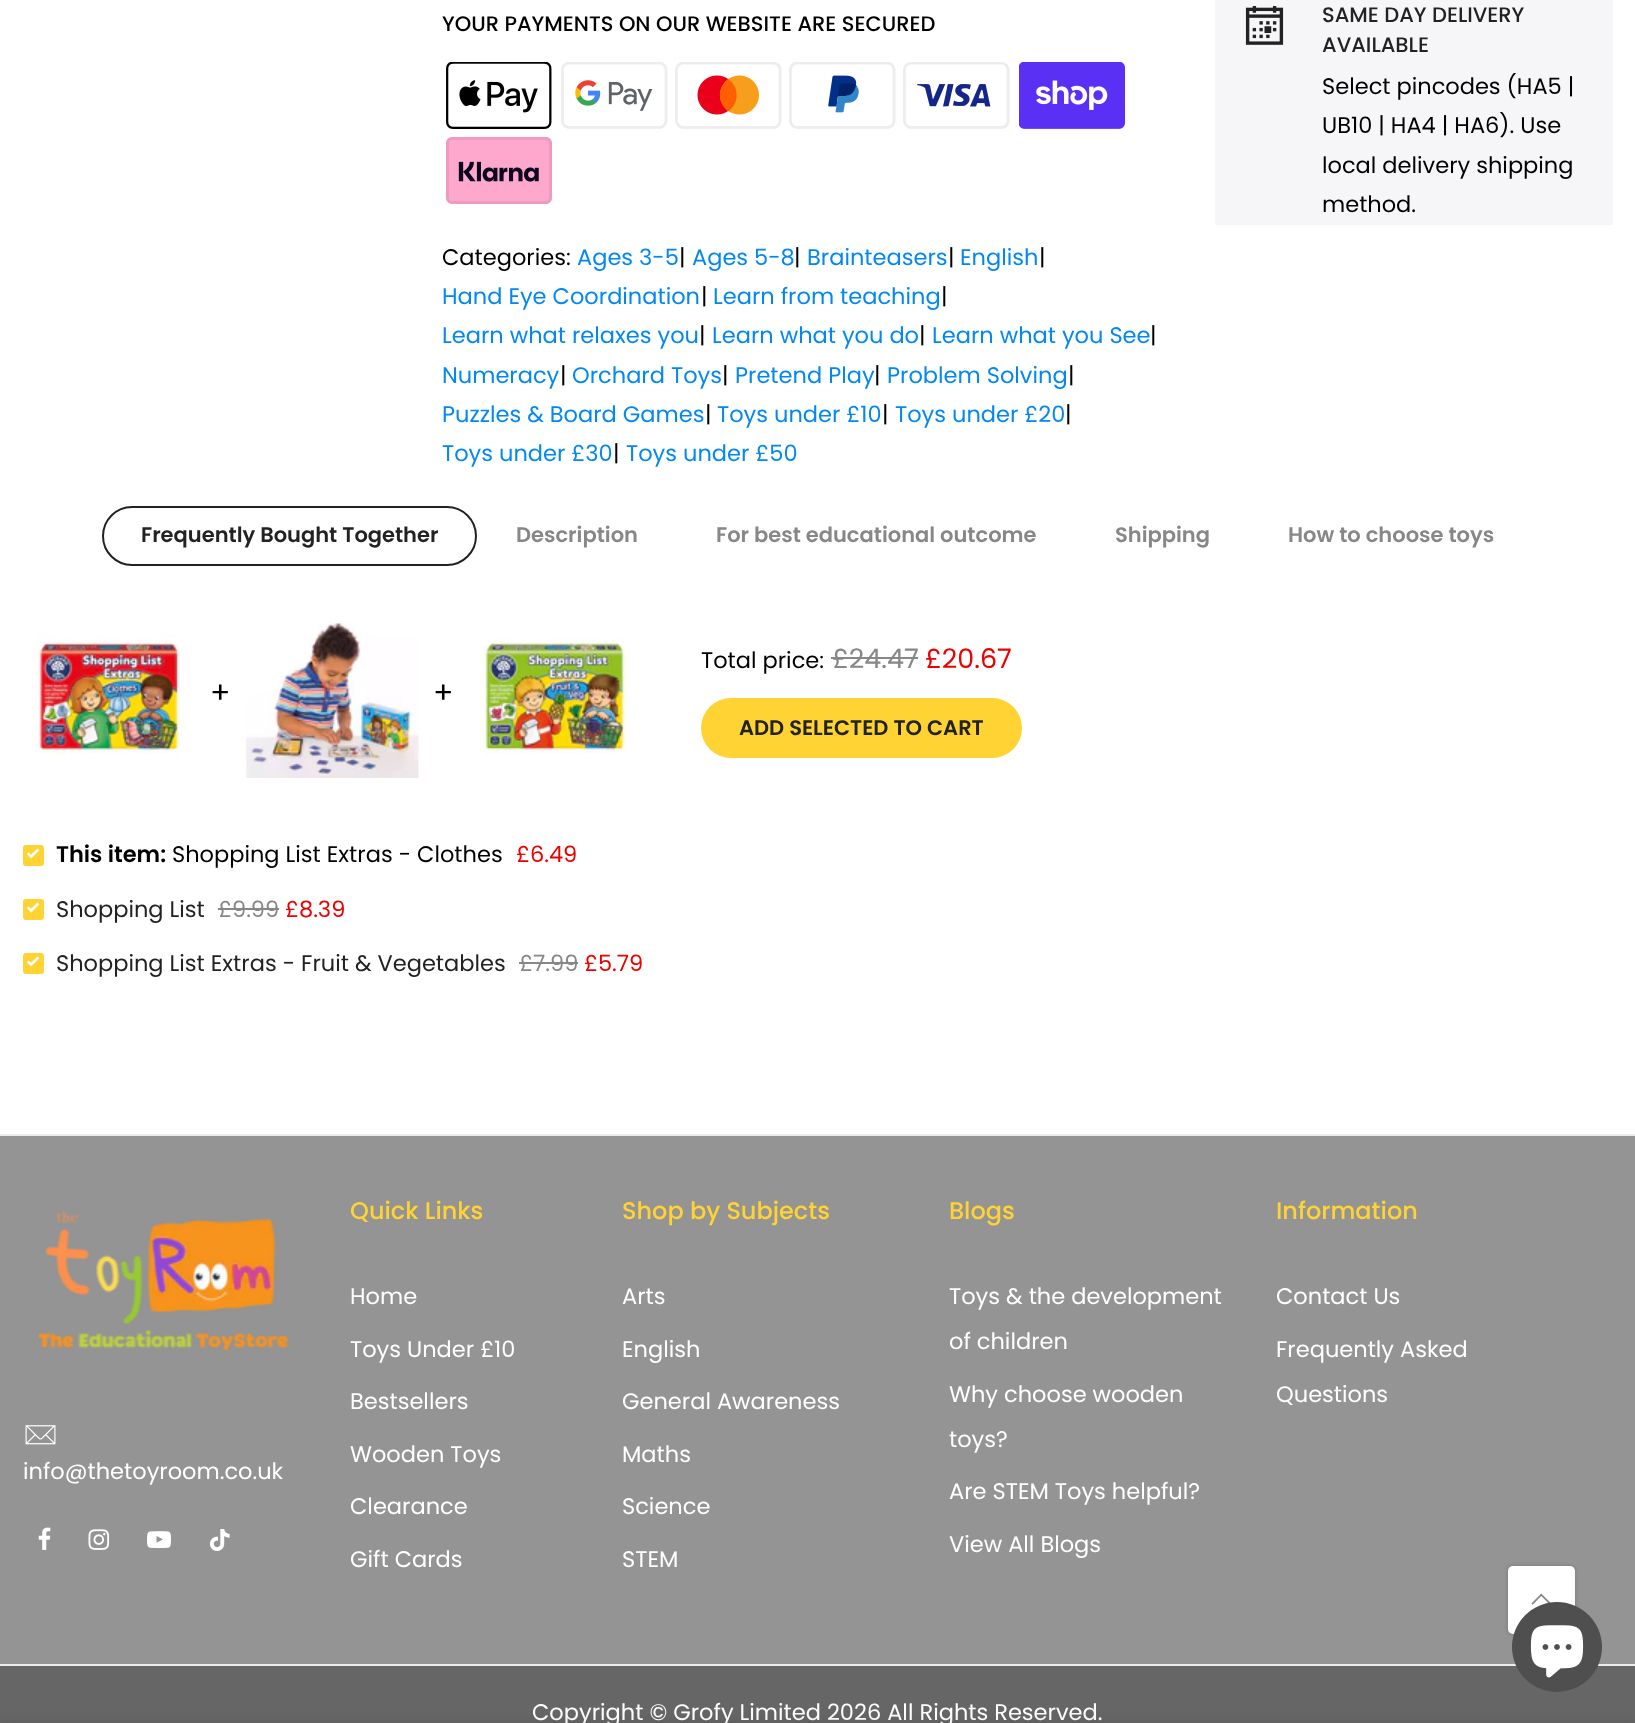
async function draw(canvas) {
  canvas.width = 1635
  canvas.height = 1723
  const ctx = canvas.getContext('2d')
  ctx.miterLimit = 4
  ctx.fontKerning = 'normal'
  async function loadImage(src) {
    const img = new Image()
    img.src = src
    await img.decode()
    return img
  }

  ctx.fillStyle = '#fff'
  ctx.fillRect(0, 0, 1635, 1723)
  ctx.font = '500 21px Poppins'
  ctx.fillStyle = '#000'
  ctx.fillText('YOUR PAYMENTS ON OUR WEBSITE ARE SECURED', 442, 31)
  ctx.drawImage(await loadImage('image0.png'), 446, 62, 106, 67)
  ctx.drawImage(await loadImage('image1.png'), 561, 62, 107, 67)
  ctx.drawImage(await loadImage('image2.png'), 675, 62, 107, 67)
  ctx.drawImage(await loadImage('image3.png'), 789, 62, 107, 67)
  ctx.drawImage(await loadImage('image4.png'), 903, 62, 107, 67)
  ctx.drawImage(await loadImage('image5.png'), 1019, 62, 106, 67)
  ctx.drawImage(await loadImage('image6.png'), 446, 137, 106, 67)
  ctx.font = '22.5px Poppins'
  ctx.fillText('Categories:', 442, 265)
  ctx.fillStyle = '#0288f2'
  ctx.fillText('Ages 3-5', 577, 265)
  ctx.fillStyle = '#000'
  ctx.fillText('|', 679, 265)
  ctx.fillStyle = '#0288f2'
  ctx.fillText('Ages 5-8', 692, 265)
  ctx.fillStyle = '#000'
  ctx.fillText('|', 794, 265)
  ctx.fillStyle = '#0288f2'
  ctx.fillText('Brainteasers', 807, 265)
  ctx.fillStyle = '#000'
  ctx.fillText('|', 948, 265)
  ctx.fillStyle = '#0288f2'
  ctx.fillText('English', 960, 265)
  ctx.fillStyle = '#000'
  ctx.fillText('|', 1039, 265)
  ctx.fillStyle = '#0288f2'
  ctx.fillText('Hand Eye Coordination', 442, 304)
  ctx.fillStyle = '#000'
  ctx.fillText('|', 701, 304)
  ctx.fillStyle = '#0288f2'
  ctx.fillText('Learn from teaching', 713, 304)
  ctx.fillStyle = '#000'
  ctx.fillText('|', 941, 304)
  ctx.fillStyle = '#0288f2'
  ctx.fillText('Learn what relaxes you', 442, 343)
  ctx.fillStyle = '#000'
  ctx.fillText('|', 699, 343)
  ctx.fillStyle = '#0288f2'
  ctx.fillText('Learn what you do', 712, 343)
  ctx.fillStyle = '#000'
  ctx.fillText('|', 919, 343)
  ctx.fillStyle = '#0288f2'
  ctx.fillText('Learn what you See', 932, 343)
  ctx.fillStyle = '#000'
  ctx.fillText('|', 1150, 343)
  ctx.fillStyle = '#0288f2'
  ctx.fillText('Numeracy', 442, 383)
  ctx.fillStyle = '#000'
  ctx.fillText('|', 560, 383)
  ctx.fillStyle = '#0288f2'
  ctx.fillText('Orchard Toys', 572, 383)
  ctx.fillStyle = '#000'
  ctx.fillText('|', 722, 383)
  ctx.fillStyle = '#0288f2'
  ctx.fillText('Pretend Play', 735, 383)
  ctx.fillStyle = '#000'
  ctx.fillText('|', 874, 383)
  ctx.fillStyle = '#0288f2'
  ctx.fillText('Problem Solving', 887, 383)
  ctx.fillStyle = '#000'
  ctx.fillText('|', 1068, 383)
  ctx.fillStyle = '#0288f2'
  ctx.fillText('Puzzles & Board Games', 442, 422)
  ctx.fillStyle = '#000'
  ctx.fillText('|', 705, 422)
  ctx.fillStyle = '#0288f2'
  ctx.fillText('Toys under £10', 717, 422)
  ctx.fillStyle = '#000'
  ctx.fillText('|', 882, 422)
  ctx.fillStyle = '#0288f2'
  ctx.fillText('Toys under £20', 895, 422)
  ctx.fillStyle = '#000'
  ctx.fillText('|', 1065, 422)
  ctx.fillStyle = '#0288f2'
  ctx.fillText('Toys under £30', 442, 461)
  ctx.fillStyle = '#000'
  ctx.fillText('|', 613, 461)
  ctx.fillStyle = '#0288f2'
  ctx.fillText('Toys under £50', 626, 461)
  ctx.fillStyle = '#f6f6f8'
  ctx.fillRect(1215, 0, 398, 225)
  ctx.drawImage(await loadImage('image7.png'), 1245, 6, 39, 39)
  ctx.font = '500 21px Poppins'
  ctx.fillStyle = '#222'
  ctx.fillText('SAME DAY DELIVERY', 1322, 22)
  ctx.fillText('AVAILABLE', 1322, 52)
  ctx.font = '22.5px Poppins'
  ctx.fillStyle = '#000'
  ctx.fillText('Select pincodes (HA5 |', 1322, 94)
  ctx.fillText('UB10 | HA4 | HA6). Use', 1322, 133)
  ctx.fillText('local delivery shipping', 1322, 173)
  ctx.fillText('method.', 1322, 212)
  ctx.beginPath()
  ctx.roundRect(103, 507, 373, 58, 29)
  ctx.strokeStyle = '#222'
  ctx.lineWidth = 2
  ctx.stroke()
  ctx.font = '600 21px Poppins'
  ctx.fillStyle = '#222'
  ctx.fillText('Frequently Bought Together', 141, 542)
  ctx.fillStyle = '#878787'
  ctx.fillText('Description', 516, 542)
  ctx.fillText('For best educational outcome', 716, 542)
  ctx.fillText('Shipping', 1115, 542)
  ctx.fillText('How to choose toys', 1288, 542)
  ctx.drawImage(await loadImage('image8.png'), 36, 634, 144, 121)
  ctx.font = '30px Poppins'
  ctx.fillStyle = '#000'
  ctx.fillText('+', 210, 703)
  ctx.drawImage(await loadImage('image9.png'), 246, 621, 173, 157)
  ctx.fillText('+', 433, 703)
  ctx.drawImage(await loadImage('image10.png'), 480, 638, 146, 116)
  ctx.font = '22.5px Poppins'
  ctx.fillText('Total price:', 701, 668)
  ctx.font = '27px Poppins'
  ctx.fillStyle = '#878787'
  ctx.fillText('£24.47', 832, 668)
  ctx.fillRect(831, 657, 87, 2)
  ctx.fillStyle = '#ec0101'
  ctx.fillText('£20.67', 925, 668)
  ctx.fillStyle = '#ffd333'
  ctx.beginPath()
  ctx.roundRect(701, 698, 321, 60, 30)
  ctx.fill()
  ctx.font = '600 21px Poppins'
  ctx.fillStyle = '#222'
  ctx.fillText('ADD SELECTED TO CART', 739, 735)
  ctx.fillStyle = '#ffd333'
  ctx.beginPath()
  ctx.roundRect(24, 846, 19, 19, 2)
  ctx.fill()
  ctx.strokeStyle = '#ffd333'
  ctx.stroke()
  ctx.drawImage(await loadImage('image11.png'), 26, 848, 14, 11)
  ctx.font = '600 22.5px Poppins'
  ctx.fillStyle = '#000'
  ctx.fillText('This item:', 56, 862)
  ctx.font = '22.5px Poppins'
  ctx.fillText('Shopping List Extras - Clothes', 172, 862)
  ctx.fillStyle = '#ec0101'
  ctx.fillText('£6.49', 516, 862)
  ctx.fillStyle = '#ffd333'
  ctx.beginPath()
  ctx.roundRect(24, 900, 19, 19, 2)
  ctx.fill()
  ctx.stroke()
  ctx.drawImage(await loadImage('image11.png'), 26, 902, 14, 11)
  ctx.fillStyle = '#222'
  ctx.fillText('Shopping List', 56, 917)
  ctx.fillStyle = '#878787'
  ctx.fillText('£9.99', 218, 917)
  ctx.fillRect(218, 908, 61, 2)
  ctx.fillStyle = '#ec0101'
  ctx.fillText('£8.39', 285, 917)
  ctx.fillStyle = '#ffd333'
  ctx.beginPath()
  ctx.roundRect(24, 954, 19, 19, 2)
  ctx.fill()
  ctx.stroke()
  ctx.drawImage(await loadImage('image11.png'), 26, 956, 14, 11)
  ctx.fillStyle = '#222'
  ctx.fillText('Shopping List Extras - Fruit & Vegetables', 56, 971)
  ctx.fillStyle = '#878787'
  ctx.fillText('£7.99', 519, 971)
  ctx.fillRect(519, 962, 59, 2)
  ctx.fillStyle = '#ec0101'
  ctx.fillText('£5.79', 584, 971)
  ctx.fillStyle = '#ededed'
  ctx.fillRect(0, 1134, 1635, 2)
  ctx.fillRect(0, 1664, 1635, 2)
  ctx.fillStyle = '#949494'
  ctx.fillRect(0, 1136, 1635, 528)
  ctx.drawImage(await loadImage('image12.png'), 37, 1211, 253, 141)
  ctx.drawImage(await loadImage('image13.png'), 25, 1425, 31, 20)
  ctx.fillStyle = '#fff'
  ctx.fillText('info@thetoyroom.co.uk', 23, 1479)
  ctx.drawImage(await loadImage('image14.png'), 38, 1527, 13, 23)
  ctx.drawImage(await loadImage('image15.png'), 88, 1529, 22, 21)
  ctx.drawImage(await loadImage('image16.png'), 147, 1531, 24, 18)
  ctx.drawImage(await loadImage('image17.png'), 209, 1529, 21, 22)
  ctx.font = '500 24px Poppins'
  ctx.fillStyle = '#ffd333'
  ctx.fillText('Quick Links', 350, 1219)
  ctx.font = '22.5px Poppins'
  ctx.fillStyle = '#fff'
  ctx.fillText('Home', 350, 1304)
  ctx.fillText('Toys Under £10', 350, 1357)
  ctx.fillText('Bestsellers', 350, 1409)
  ctx.fillText('Wooden Toys', 350, 1462)
  ctx.fillText('Clearance', 350, 1514)
  ctx.fillText('Gift Cards', 350, 1567)
  ctx.font = '500 24px Poppins'
  ctx.fillStyle = '#ffd333'
  ctx.fillText('Shop by Subjects', 622, 1219)
  ctx.font = '22.5px Poppins'
  ctx.fillStyle = '#fff'
  ctx.fillText('Arts', 622, 1304)
  ctx.fillText('English', 622, 1357)
  ctx.fillText('General Awareness', 622, 1409)
  ctx.fillText('Maths', 622, 1462)
  ctx.fillText('Science', 622, 1514)
  ctx.fillText('STEM', 622, 1567)
  ctx.font = '500 24px Poppins'
  ctx.fillStyle = '#ffd333'
  ctx.fillText('Blogs', 949, 1219)
  ctx.font = '22.5px Poppins'
  ctx.fillStyle = '#fff'
  ctx.fillText('Toys & the development', 949, 1304)
  ctx.fillText('of children', 949, 1349)
  ctx.fillText('Why choose wooden', 949, 1402)
  ctx.fillText('toys?', 949, 1447)
  ctx.fillText('Are STEM Toys helpful?', 949, 1499)
  ctx.fillText('View All Blogs', 949, 1552)
  ctx.font = '500 24px Poppins'
  ctx.fillStyle = '#ffd333'
  ctx.fillText('Information', 1276, 1219)
  ctx.font = '22.5px Poppins'
  ctx.fillStyle = '#fff'
  ctx.fillText('Contact Us', 1276, 1304)
  ctx.fillText('Frequently Asked', 1276, 1357)
  ctx.fillText('Questions', 1276, 1402)
  ctx.fillStyle = '#666'
  ctx.fillRect(0, 1666, 1635, 57)
  ctx.fillStyle = '#fff'
  ctx.fillText('Copyright © Grofy Limited 2026 All Rights Reserved.', 532, 1720)
  ctx.fillStyle = '#00000033'
  ctx.filter = 'blur(2px)'
  ctx.beginPath()
  ctx.roundRect(1508, 1566, 67, 68, 5)
  ctx.fill()
  ctx.filter = 'none'
  ctx.fillStyle = '#fff'
  ctx.beginPath()
  ctx.roundRect(1508, 1566, 67, 68, 5)
  ctx.fill()
  ctx.drawImage(await loadImage('image18.png'), 1531, 1593, 20, 12)
  ctx.fillStyle = '#4f4f4f'
  ctx.beginPath()
  ctx.arc(1557, 1647, 45, 0, 2 * Math.PI)
  ctx.fill()
  ctx.drawImage(await loadImage('image19.png'), 1530, 1625, 54, 53)
  ctx.fillStyle = '#00000024'
  ctx.filter = 'blur(7px)'
  ctx.beginPath()
  ctx.rect(0, 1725, 1635, 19)
  ctx.fill()
  ctx.filter = 'none'
}

draw(document.querySelector('canvas'))
